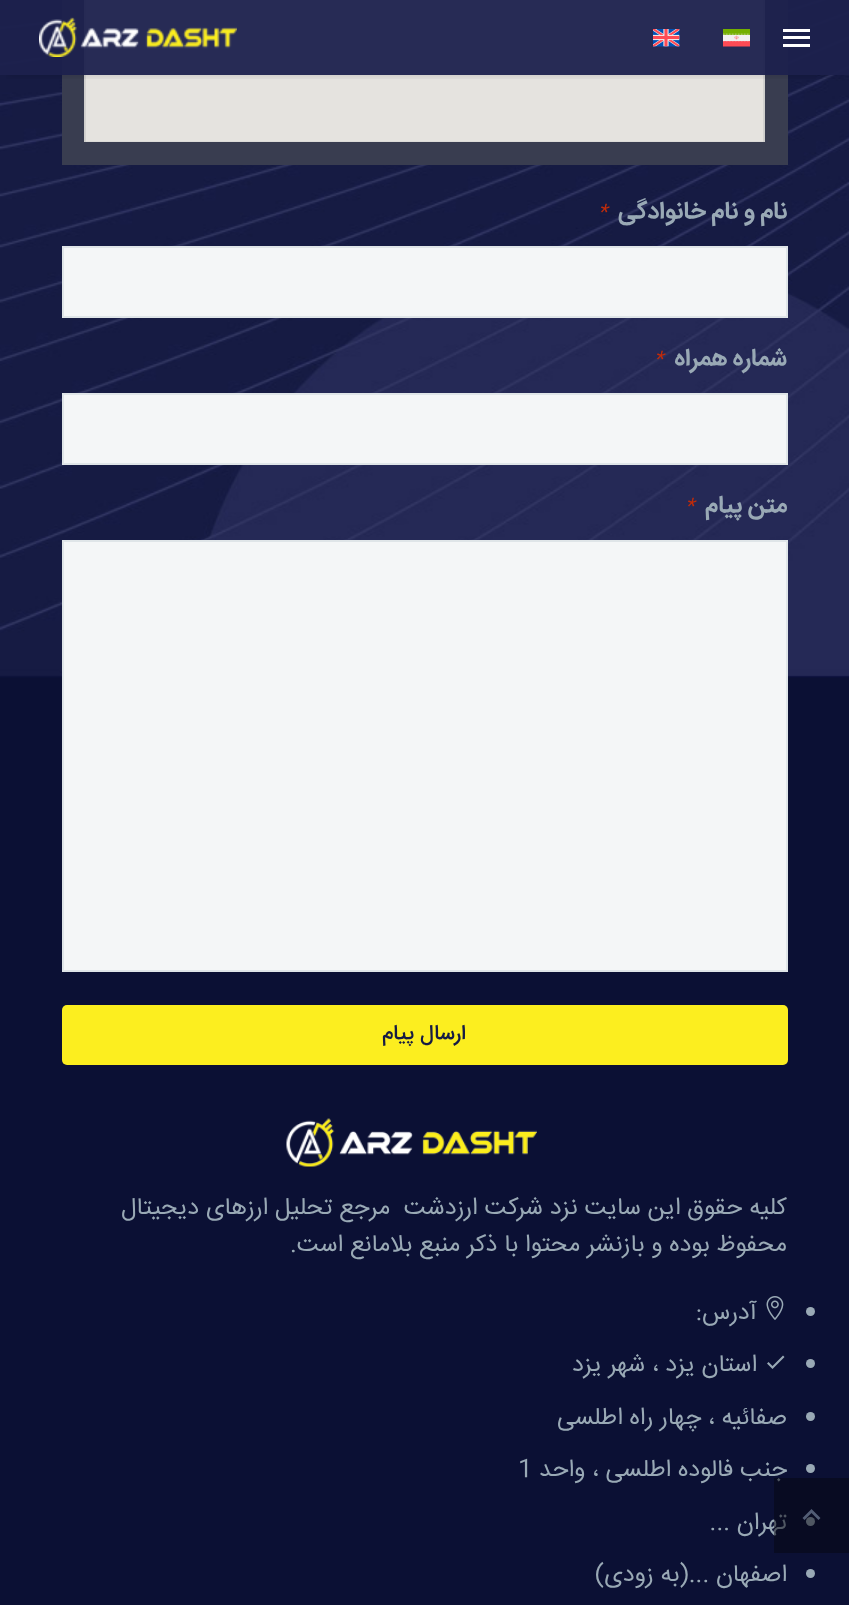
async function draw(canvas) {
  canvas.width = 849
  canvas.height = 1605
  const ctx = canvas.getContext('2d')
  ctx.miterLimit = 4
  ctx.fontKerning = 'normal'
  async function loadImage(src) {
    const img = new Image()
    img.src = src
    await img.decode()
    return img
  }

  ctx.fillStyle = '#0b1034'
  ctx.fillRect(0, 0, 849, 1605)
  ctx.drawImage(await loadImage('image3.png'), 0, 0, 849, 678)
  ctx.strokeStyle = '#393d50'
  ctx.lineWidth = 23
  ctx.strokeRect(73.5, -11.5, 703, 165)
  ctx.drawImage(await loadImage('image4.png'), 84, 0, 681, 142)
  ctx.fillStyle = '#1c214df2'
  ctx.fillRect(0, 0, 849, 75)
  ctx.save()
  ctx.beginPath()
  ctx.rect(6, 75, 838, 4)
  ctx.clip()
  ctx.fillStyle = '#00000026'
  ctx.filter = 'blur(4px)'
  ctx.beginPath()
  ctx.rect(8, 15, 834, 60)
  ctx.fill()
  ctx.filter = 'none'
  ctx.restore()
  ctx.fillStyle = '#fff'
  ctx.fillRect(783, 29, 27, 3)
  ctx.fillRect(783, 36, 27, 3)
  ctx.fillRect(783, 44, 27, 3)
  ctx.drawImage(await loadImage('image0.png'), 723, 29, 27, 18)
  ctx.drawImage(await loadImage('image1.png'), 653, 29, 27, 18)
  ctx.drawImage(await loadImage('image2.png'), 39, 17, 198, 40)
  ctx.direction = 'rtl'
  ctx.font = '24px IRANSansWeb'
  ctx.fillStyle = '#99a9b5'
  ctx.fillText('جنب فالوده اطلسی ، واحد', 787, 1476)
  ctx.beginPath()
  ctx.arc(810.5, 1521.5, 4.5, 0, 2 * Math.PI)
  ctx.fill()
  ctx.fillText('تهران ...', 787, 1529)
  ctx.fillStyle = '#06060f80'
  ctx.fillRect(774, 1478, 75, 75)
  ctx.fillStyle = '#525d75'
  ctx.beginPath()
  ctx.moveTo(804.5, 1520)
  ctx.lineTo(811.5, 1513)
  ctx.lineTo(818.5, 1520)
  ctx.lineTo(820.5, 1518)
  ctx.lineTo(811.5, 1509)
  ctx.lineTo(802.5, 1518)
  ctx.closePath()
  ctx.fill()
  ctx.font = 'bold 24px IRANSansWeb'
  ctx.fillStyle = '#99a9b5'
  ctx.fillText('نام و نام خانوادگی', 787, 218)
  ctx.direction = 'ltr'
  ctx.font = 'italic 20px IRANSansWeb'
  ctx.fillStyle = '#c02b0a'
  ctx.fillText('*', 598, 218)
  ctx.fillStyle = '#f4f6f7'
  ctx.beginPath()
  ctx.rect(63, 247, 724, 70)
  ctx.fill()
  ctx.strokeStyle = '#dfe5e8'
  ctx.lineWidth = 2
  ctx.stroke()
  ctx.direction = 'rtl'
  ctx.font = 'bold 24px IRANSansWeb'
  ctx.fillStyle = '#99a9b5'
  ctx.fillText('شماره همراه', 787, 365)
  ctx.direction = 'ltr'
  ctx.font = 'italic 20px IRANSansWeb'
  ctx.fillStyle = '#c02b0a'
  ctx.fillText('*', 654, 365)
  ctx.fillStyle = '#f4f6f7'
  ctx.beginPath()
  ctx.rect(63, 394, 724, 70)
  ctx.fill()
  ctx.stroke()
  ctx.direction = 'rtl'
  ctx.font = 'bold 24px IRANSansWeb'
  ctx.fillStyle = '#99a9b5'
  ctx.fillText('متن پیام', 787, 512)
  ctx.direction = 'ltr'
  ctx.font = 'italic 20px IRANSansWeb'
  ctx.fillStyle = '#c02b0a'
  ctx.fillText('*', 685, 512)
  ctx.fillStyle = '#f4f6f7'
  ctx.beginPath()
  ctx.rect(63, 541, 724, 430)
  ctx.fill()
  ctx.stroke()
  ctx.fillStyle = '#fcee1f'
  ctx.beginPath()
  ctx.roundRect(62, 1005, 726, 60, 5)
  ctx.fill()
  ctx.direction = 'rtl'
  ctx.font = '500 21px IRANSansWeb'
  ctx.fillStyle = '#161b44'
  ctx.fillText('ارسال پیام', 466, 1039)
  ctx.drawImage(await loadImage('image5.png'), 286, 1118, 251, 49)
  ctx.font = '24px IRANSansWeb'
  ctx.fillStyle = '#99a9b5'
  ctx.fillText('کلیه حقوق این سایت نزد شرکت ارزدشت  مرجع تحلیل ارزهای دیجیتال', 787, 1214)
  ctx.fillText('محفوظ بوده و بازنشر محتوا با ذکر منبع بلامانع است.', 787, 1251)
  ctx.beginPath()
  ctx.arc(810.5, 1311.5, 4.5, 0, 2 * Math.PI)
  ctx.fill()
  ctx.drawImage(await loadImage('image6.png'), 766, 1296, 18, 24)
  ctx.fillText('آدرس:', 757, 1319)
  ctx.beginPath()
  ctx.arc(810.5, 1363.5, 4.5, 0, 2 * Math.PI)
  ctx.fill()
  ctx.beginPath()
  ctx.moveTo(784.5, 1357)
  ctx.lineTo(772.5, 1369)
  ctx.lineTo(767, 1363.5)
  ctx.lineTo(768.5, 1362)
  ctx.lineTo(772.5, 1366)
  ctx.lineTo(783, 1355.5)
  ctx.closePath()
  ctx.fill()
  ctx.fillText('استان یزد ، شهر یزد', 757, 1371)
  ctx.beginPath()
  ctx.arc(810.5, 1416.5, 4.5, 0, 2 * Math.PI)
  ctx.fill()
  ctx.fillText('صفائیه ، چهار راه اطلسی', 787, 1424)
  ctx.beginPath()
  ctx.arc(810.5, 1468.5, 4.5, 0, 2 * Math.PI)
  ctx.fill()
  ctx.direction = 'ltr'
  ctx.fillText('1', 518, 1476)
  ctx.beginPath()
  ctx.arc(810.5, 1573.5, 4.5, 0, 2 * Math.PI)
  ctx.fill()
  ctx.direction = 'rtl'
  ctx.fillText('اصفهان ...(به زودی)', 787, 1581)
}

draw(document.querySelector('canvas'))
